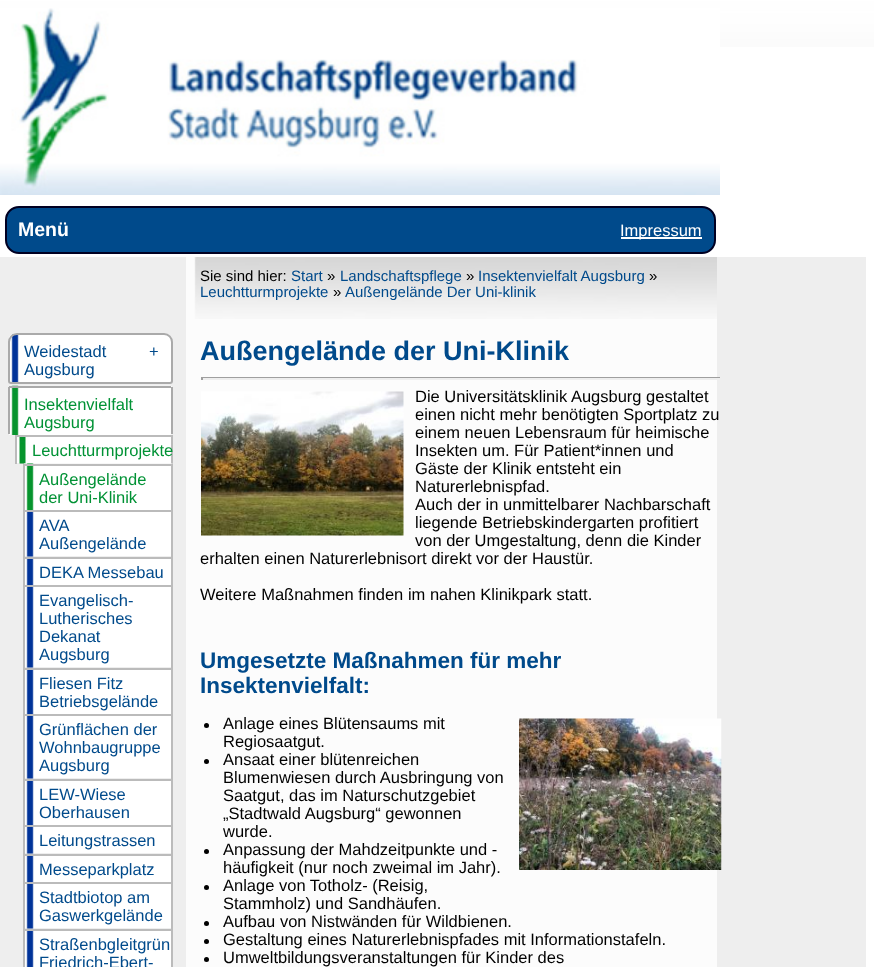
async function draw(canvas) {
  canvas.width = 874
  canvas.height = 967
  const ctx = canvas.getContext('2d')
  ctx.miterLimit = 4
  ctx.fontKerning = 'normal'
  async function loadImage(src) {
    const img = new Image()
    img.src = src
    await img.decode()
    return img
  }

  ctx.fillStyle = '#fff'
  ctx.fillRect(0, 0, 874, 967)
  ctx.drawImage(await loadImage('image0.png'), 0, 0, 874, 47)
  ctx.drawImage(await loadImage('image1.png'), 0, 8, 720, 187)
  ctx.fillStyle = '#004a8b'
  ctx.beginPath()
  ctx.roundRect(6, 207, 709, 46, 13)
  ctx.fill()
  ctx.strokeStyle = '#002'
  ctx.lineWidth = 2
  ctx.stroke()
  ctx.font = 'bold 19.5px Liberation Sans'
  ctx.fillStyle = '#fff'
  ctx.fillText('Menü', 18, 236)
  ctx.fillRect(621, 237, 81, 2)
  ctx.font = '16.5px Liberation Sans'
  ctx.fillText('Impressum', 620, 236)
  ctx.fillStyle = '#eee'
  ctx.fillRect(0, 257, 866, 710)
  ctx.drawImage(await loadImage('image2.png'), 9, 334, 164, 50)
  ctx.beginPath()
  ctx.roundRect(9, 334, 163, 49, [8, 8, 2, 2])
  ctx.strokeStyle = '#aaa'
  ctx.stroke()
  ctx.fillStyle = '#004a8b'
  ctx.fillText('Weidestadt', 24, 357)
  ctx.fillText('+', 149, 357)
  ctx.fillText('Augsburg', 24, 375)
  ctx.drawImage(await loadImage('image3.png'), 9, 385, 163, 50)
  ctx.fillStyle = '#aaa'
  ctx.fillRect(9, 386, 162, 2)
  ctx.fillRect(171, 387, 2, 47)
  ctx.fillRect(8, 387, 2, 47)
  ctx.fillStyle = '#019235'
  ctx.fillText('Insektenvielfalt', 24, 410)
  ctx.fillText('Augsburg', 24, 428)
  ctx.fillStyle = '#ddd'
  ctx.fillRect(17, 463, 154, 1)
  ctx.drawImage(await loadImage('image4.png'), 17, 437, 154, 27)
  ctx.fillStyle = '#bbb'
  ctx.fillRect(15, 435, 158, 2)
  ctx.fillRect(171, 435, 2, 29)
  ctx.fillRect(15, 435, 2, 29)
  ctx.fillStyle = '#019235'
  ctx.fillText('Leuchtturmprojekte', 32, 456)
  ctx.drawImage(await loadImage('image5.png'), 24, 463, 149, 47)
  ctx.fillStyle = '#bbb'
  ctx.fillRect(23, 464, 150, 2)
  ctx.fillRect(171, 464, 2, 46)
  ctx.fillRect(23, 464, 2, 46)
  ctx.fillStyle = '#019235'
  ctx.fillText('Außengelände', 39, 485)
  ctx.fillText('der Uni-Klinik', 39, 503)
  ctx.fillStyle = '#ddd'
  ctx.fillRect(25, 556, 146, 1)
  ctx.drawImage(await loadImage('image6.png'), 25, 512, 146, 45)
  ctx.fillStyle = '#bbb'
  ctx.fillRect(23, 510, 150, 2)
  ctx.fillRect(171, 510, 2, 47)
  ctx.fillRect(23, 510, 2, 47)
  ctx.fillStyle = '#004a8b'
  ctx.fillText('AVA', 39, 531)
  ctx.fillText('Außengelände', 39, 549)
  ctx.drawImage(await loadImage('image7.png'), 25, 559, 146, 26)
  ctx.fillStyle = '#bbb'
  ctx.fillRect(23, 557, 150, 2)
  ctx.fillRect(171, 557, 2, 28)
  ctx.fillRect(23, 557, 2, 28)
  ctx.fillStyle = '#004a8b'
  ctx.fillText('DEKA Messebau', 39, 578)
  ctx.fillStyle = '#ddd'
  ctx.fillRect(25, 667, 146, 1)
  ctx.drawImage(await loadImage('image8.png'), 25, 587, 146, 81)
  ctx.fillStyle = '#bbb'
  ctx.fillRect(23, 585, 150, 2)
  ctx.fillRect(171, 585, 2, 83)
  ctx.fillRect(23, 585, 2, 83)
  ctx.fillStyle = '#004a8b'
  ctx.fillText('Evangelisch-', 39, 606)
  ctx.fillText('Lutherisches', 39, 624)
  ctx.fillText('Dekanat', 39, 642)
  ctx.fillText('Augsburg', 39, 660)
  ctx.drawImage(await loadImage('image9.png'), 25, 670, 146, 44)
  ctx.fillStyle = '#bbb'
  ctx.fillRect(23, 668, 150, 2)
  ctx.fillRect(171, 668, 2, 46)
  ctx.fillRect(23, 668, 2, 46)
  ctx.fillStyle = '#004a8b'
  ctx.fillText('Fliesen Fitz', 39, 689)
  ctx.fillText('Betriebsgelände', 39, 707)
  ctx.fillStyle = '#ddd'
  ctx.fillRect(25, 778, 146, 1)
  ctx.drawImage(await loadImage('image10.png'), 25, 716, 146, 63)
  ctx.fillStyle = '#bbb'
  ctx.fillRect(23, 714, 150, 2)
  ctx.fillRect(171, 714, 2, 65)
  ctx.fillRect(23, 714, 2, 65)
  ctx.fillStyle = '#004a8b'
  ctx.fillText('Grünflächen der', 39, 735)
  ctx.fillText('Wohnbaugruppe', 39, 753)
  ctx.fillText('Augsburg', 39, 771)
  ctx.drawImage(await loadImage('image9.png'), 25, 781, 146, 44)
  ctx.fillStyle = '#bbb'
  ctx.fillRect(23, 779, 150, 2)
  ctx.fillRect(171, 779, 2, 46)
  ctx.fillRect(23, 779, 2, 46)
  ctx.fillStyle = '#004a8b'
  ctx.fillText('LEW-Wiese', 39, 800)
  ctx.fillText('Oberhausen', 39, 818)
  ctx.fillStyle = '#ddd'
  ctx.fillRect(25, 853, 146, 1)
  ctx.drawImage(await loadImage('image11.png'), 25, 827, 146, 27)
  ctx.fillStyle = '#bbb'
  ctx.fillRect(23, 825, 150, 2)
  ctx.fillRect(171, 825, 2, 29)
  ctx.fillRect(23, 825, 2, 29)
  ctx.fillStyle = '#004a8b'
  ctx.fillText('Leitungstrassen', 39, 846)
  ctx.drawImage(await loadImage('image7.png'), 25, 856, 146, 26)
  ctx.fillStyle = '#bbb'
  ctx.fillRect(23, 854, 150, 2)
  ctx.fillRect(171, 854, 2, 28)
  ctx.fillRect(23, 854, 2, 28)
  ctx.fillStyle = '#004a8b'
  ctx.fillText('Messeparkplatz', 39, 875)
  ctx.fillStyle = '#ddd'
  ctx.fillRect(25, 928, 146, 1)
  ctx.drawImage(await loadImage('image6.png'), 25, 884, 146, 45)
  ctx.fillStyle = '#bbb'
  ctx.fillRect(23, 882, 150, 2)
  ctx.fillRect(171, 882, 2, 47)
  ctx.fillRect(23, 882, 2, 47)
  ctx.fillStyle = '#004a8b'
  ctx.fillText('Stadtbiotop am', 39, 903)
  ctx.fillText('Gaswerkgelände', 39, 921)
  ctx.drawImage(await loadImage('image12.png'), 25, 931, 146, 36)
  ctx.fillStyle = '#bbb'
  ctx.fillRect(23, 929, 150, 2)
  ctx.fillRect(171, 929, 2, 38)
  ctx.fillRect(23, 929, 2, 38)
  ctx.fillStyle = '#004a8b'
  ctx.fillText('Straßenbgleitgrün', 39, 950)
  ctx.fillText('Friedrich-Ebert-', 39, 968)
  ctx.fillStyle = '#fcfcfc'
  ctx.fillRect(186, 257, 531, 710)
  ctx.drawImage(await loadImage('image13.png'), 194, 257, 523, 62)
  ctx.font = '15px Liberation Sans'
  ctx.fillStyle = '#000'
  ctx.fillText('Sie sind hier:', 200, 281)
  ctx.fillStyle = '#004a8b'
  ctx.fillText('Start', 291, 281)
  ctx.fillStyle = '#000'
  ctx.fillText('»', 327, 281)
  ctx.fillStyle = '#004a8b'
  ctx.fillText('Landschaftspflege', 340, 281)
  ctx.fillStyle = '#000'
  ctx.fillText('»', 466, 281)
  ctx.fillStyle = '#004a8b'
  ctx.fillText('Insektenvielfalt Augsburg', 478, 281)
  ctx.fillStyle = '#000'
  ctx.fillText('»', 649, 281)
  ctx.fillStyle = '#004a8b'
  ctx.fillText('Leuchtturmprojekte', 200, 297)
  ctx.fillStyle = '#000'
  ctx.fillText('»', 333, 297)
  ctx.fillStyle = '#004a8b'
  ctx.fillText('Außengelände Der Uni-klinik', 345, 297)
  ctx.font = 'bold 27px Liberation Sans'
  ctx.fillText('Außengelände der Uni-Klinik', 200, 360)
  ctx.fillStyle = '#9f9f9f'
  ctx.fillRect(201, 377, 521, 1)
  ctx.fillStyle = '#eee'
  ctx.fillRect(720, 377, 2, 3)
  ctx.fillRect(201, 378, 521, 2)
  ctx.fillStyle = '#9f9f9f'
  ctx.fillRect(201, 377, 2, 3)
  ctx.drawImage(await loadImage('image14.png'), 201, 391, 203, 145)
  ctx.font = '16.5px Liberation Sans'
  ctx.fillStyle = '#000'
  ctx.fillText('Die Universitätsklinik Augsburg gestaltet', 415, 402)
  ctx.fillText('einen nicht mehr benötigten Sportplatz zu', 415, 420)
  ctx.fillText('einem neuen Lebensraum für heimische', 415, 438)
  ctx.fillText('Insekten um. Für Patient*innen und', 415, 456)
  ctx.fillText('Gäste der Klinik entsteht ein', 415, 474)
  ctx.fillText('Naturerlebnispfad.', 415, 492)
  ctx.fillText('Auch der in unmittelbarer Nachbarschaft', 415, 510)
  ctx.fillText('liegende Betriebskindergarten profitiert', 415, 528)
  ctx.fillText('von der Umgestaltung, denn die Kinder', 415, 546)
  ctx.fillText('erhalten einen Naturerlebnisort direkt vor der Haustür.', 200, 564)
  ctx.fillText('Weitere Maßnahmen finden im nahen Klinikpark statt.', 200, 600)
  ctx.font = 'bold 22.5px Liberation Sans'
  ctx.fillStyle = '#004a8b'
  ctx.fillText('Umgesetzte Maßnahmen für mehr', 200, 668)
  ctx.fillText('Insektenvielfalt:', 200, 693)
  ctx.fillStyle = '#000'
  ctx.beginPath()
  ctx.arc(206.5, 725.5, 2.5, 0, 2 * Math.PI)
  ctx.fill()
  ctx.font = '16.5px Liberation Sans'
  ctx.fillText('Anlage eines Blütensaums mit', 223, 729)
  ctx.drawImage(await loadImage('image15.png'), 519, 718, 203, 152)
  ctx.fillText('Regiosaatgut.', 223, 747)
  ctx.beginPath()
  ctx.arc(206.5, 761.5, 2.5, 0, 2 * Math.PI)
  ctx.fill()
  ctx.fillText('Ansaat einer blütenreichen', 223, 765)
  ctx.fillText('Blumenwiesen durch Ausbringung von', 223, 783)
  ctx.fillText('Saatgut, das im Naturschutzgebiet', 223, 801)
  ctx.fillText('„Stadtwald Augsburg“ gewonnen', 223, 819)
  ctx.fillText('wurde.', 223, 837)
  ctx.beginPath()
  ctx.arc(206.5, 851.5, 2.5, 0, 2 * Math.PI)
  ctx.fill()
  ctx.fillText('Anpassung der Mahdzeitpunkte und -', 223, 855)
  ctx.fillText('häufigkeit (nur noch zweimal im Jahr).', 223, 873)
  ctx.beginPath()
  ctx.arc(206.5, 887.5, 2.5, 0, 2 * Math.PI)
  ctx.fill()
  ctx.fillText('Anlage von Totholz- (Reisig,', 223, 891)
  ctx.fillText('Stammholz) und Sandhäufen.', 223, 909)
  ctx.beginPath()
  ctx.arc(206.5, 923.5, 2.5, 0, 2 * Math.PI)
  ctx.fill()
  ctx.fillText('Aufbau von Nistwänden für Wildbienen.', 223, 927)
  ctx.beginPath()
  ctx.arc(206.5, 941.5, 2.5, 0, 2 * Math.PI)
  ctx.fill()
  ctx.fillText('Gestaltung eines Naturerlebnispfades mit Informationstafeln.', 223, 945)
  ctx.beginPath()
  ctx.arc(206.5, 959.5, 2.5, 0, 2 * Math.PI)
  ctx.fill()
  ctx.fillText('Umweltbildungsveranstaltungen für Kinder des', 223, 963)
}

draw(document.querySelector('canvas'))
